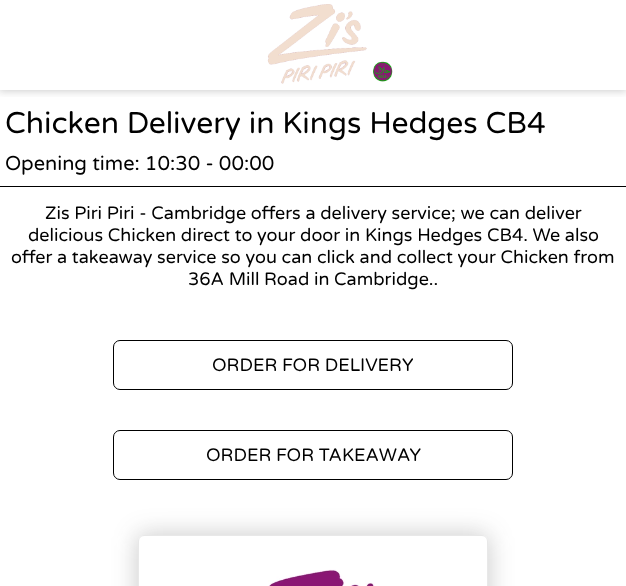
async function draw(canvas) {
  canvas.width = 626
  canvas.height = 586
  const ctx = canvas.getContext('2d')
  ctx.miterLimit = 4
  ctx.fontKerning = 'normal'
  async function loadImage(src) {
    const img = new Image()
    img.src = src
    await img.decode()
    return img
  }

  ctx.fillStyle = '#fff'
  ctx.fillRect(0, 0, 626, 586)
  ctx.save()
  ctx.beginPath()
  ctx.rect(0, 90, 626, 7)
  ctx.clip()
  ctx.fillStyle = '#35353540'
  ctx.filter = 'blur(4px)'
  ctx.beginPath()
  ctx.rect(-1, -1, 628, 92)
  ctx.fill()
  ctx.filter = 'none'
  ctx.restore()
  ctx.drawImage(await loadImage('image0.png'), 267, 4, 126, 80)
  ctx.font = '30px Varela Round'
  ctx.fillStyle = '#000'
  ctx.fillText('Chicken Delivery in Kings Hedges CB4', 5, 133)
  ctx.fillRect(0, 186, 626, 1)
  ctx.font = '20px Varela Round'
  ctx.fillText('Opening time: 10:30 - 00:00', 5, 170)
  ctx.font = '18px Varela Round'
  ctx.fillText('Zis Piri Piri - Cambridge offers a delivery service; we can deliver', 45, 219)
  ctx.fillText('delicious Chicken direct to your door in Kings Hedges CB4. We also', 28, 241)
  ctx.fillText('offer a takeaway service so you can click and collect your Chicken from', 11, 263)
  ctx.fillText('36A Mill Road in Cambridge..', 188, 285)
  ctx.beginPath()
  ctx.roundRect(113.5, 340.5, 399, 49, 6.5)
  ctx.strokeStyle = '#000'
  ctx.stroke()
  ctx.fillText('ORDER FOR DELIVERY', 212, 371)
  ctx.beginPath()
  ctx.roundRect(113.5, 430.5, 399, 49, 6.5)
  ctx.stroke()
  ctx.fillText('ORDER FOR TAKEAWAY', 206, 461)
  ctx.fillStyle = '#35353540'
  ctx.filter = 'blur(12.5px)'
  ctx.beginPath()
  ctx.roundRect(137, 534, 352, 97, 7)
  ctx.fill()
  ctx.filter = 'none'
  ctx.fillStyle = '#fff'
  ctx.beginPath()
  ctx.roundRect(138, 535, 350, 51, [6, 6, 0, 0])
  ctx.fill()
  ctx.beginPath()
  ctx.roundRect(138.5, 535.5, 349, 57, 5.5)
  ctx.strokeStyle = '#e8e8e8'
  ctx.stroke()
  ctx.drawImage(await loadImage('image1.png'), 268, 569, 107, 17)
}

draw(document.querySelector('canvas'))
